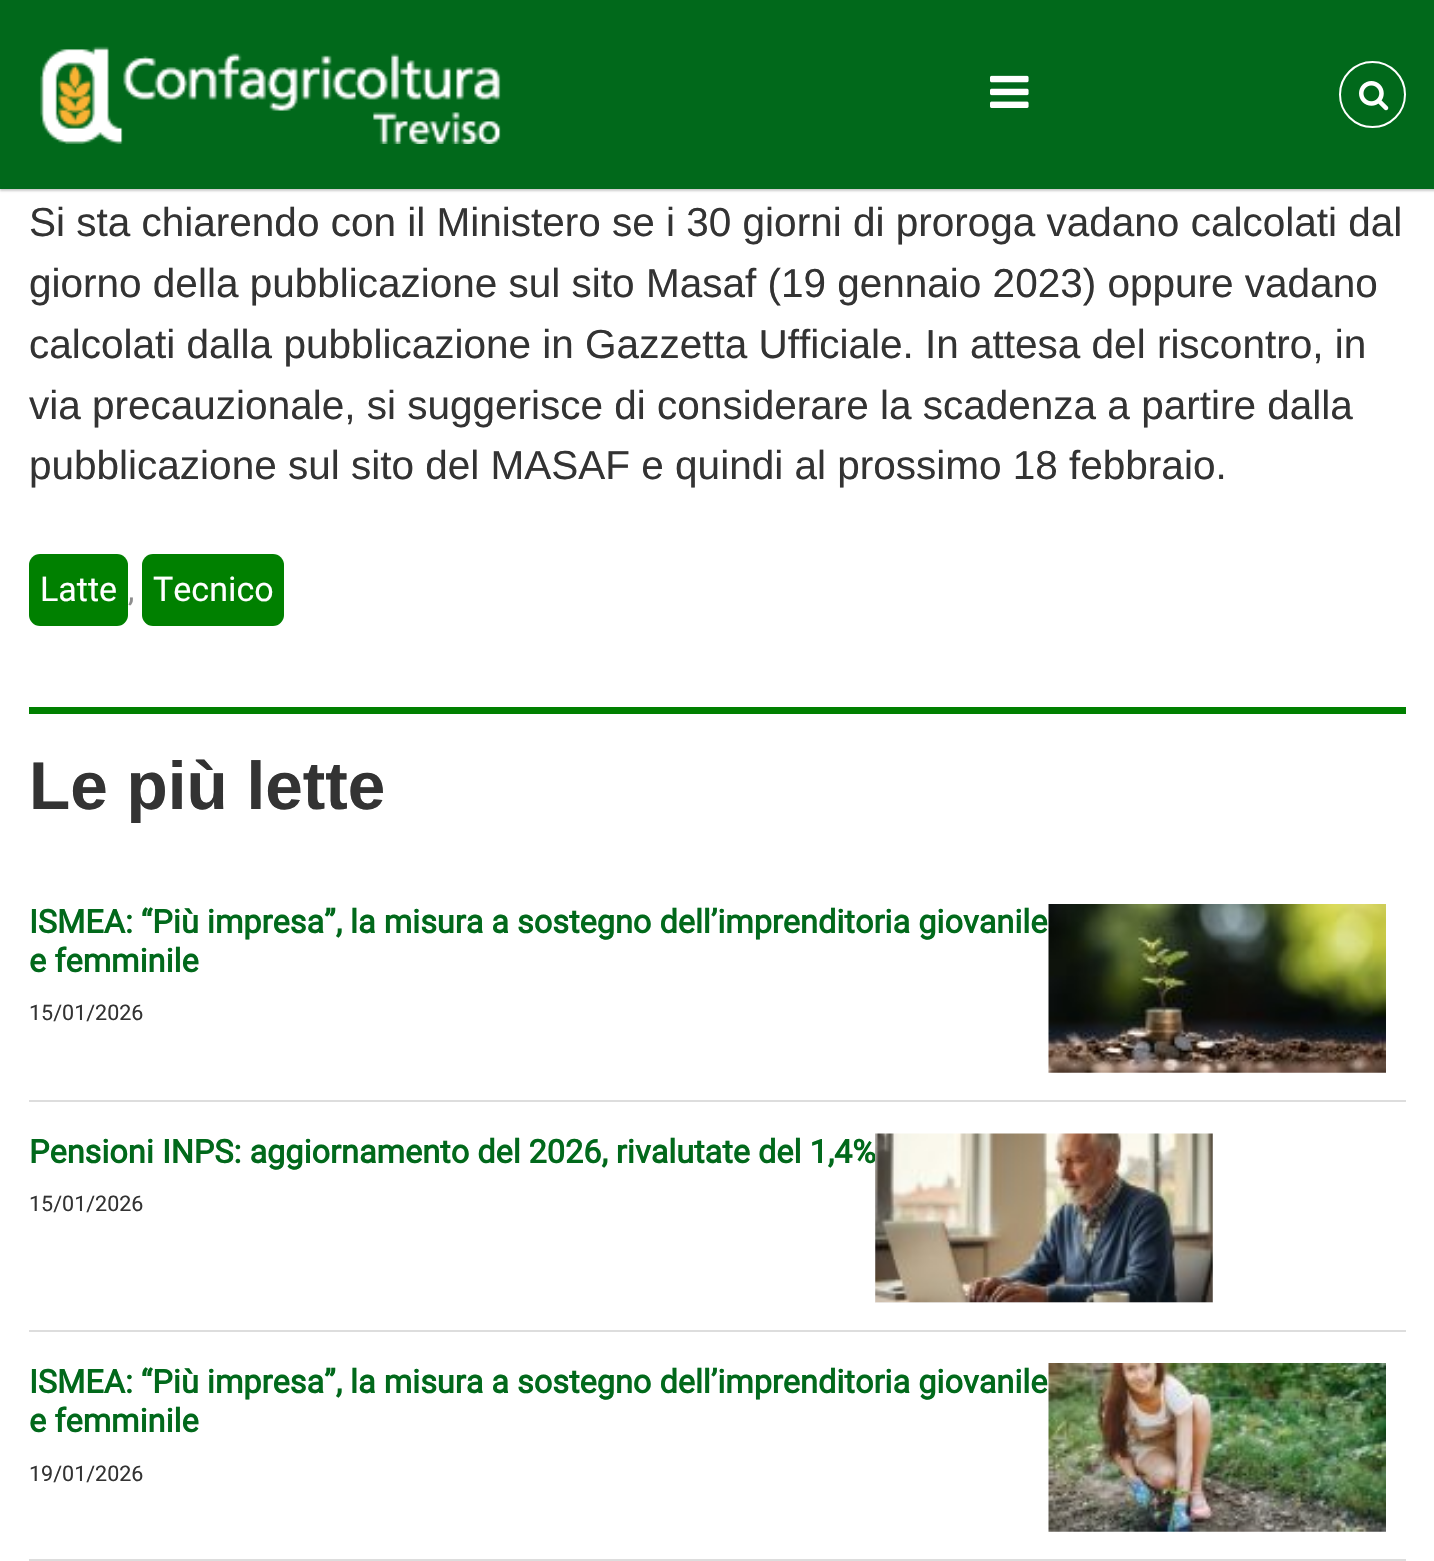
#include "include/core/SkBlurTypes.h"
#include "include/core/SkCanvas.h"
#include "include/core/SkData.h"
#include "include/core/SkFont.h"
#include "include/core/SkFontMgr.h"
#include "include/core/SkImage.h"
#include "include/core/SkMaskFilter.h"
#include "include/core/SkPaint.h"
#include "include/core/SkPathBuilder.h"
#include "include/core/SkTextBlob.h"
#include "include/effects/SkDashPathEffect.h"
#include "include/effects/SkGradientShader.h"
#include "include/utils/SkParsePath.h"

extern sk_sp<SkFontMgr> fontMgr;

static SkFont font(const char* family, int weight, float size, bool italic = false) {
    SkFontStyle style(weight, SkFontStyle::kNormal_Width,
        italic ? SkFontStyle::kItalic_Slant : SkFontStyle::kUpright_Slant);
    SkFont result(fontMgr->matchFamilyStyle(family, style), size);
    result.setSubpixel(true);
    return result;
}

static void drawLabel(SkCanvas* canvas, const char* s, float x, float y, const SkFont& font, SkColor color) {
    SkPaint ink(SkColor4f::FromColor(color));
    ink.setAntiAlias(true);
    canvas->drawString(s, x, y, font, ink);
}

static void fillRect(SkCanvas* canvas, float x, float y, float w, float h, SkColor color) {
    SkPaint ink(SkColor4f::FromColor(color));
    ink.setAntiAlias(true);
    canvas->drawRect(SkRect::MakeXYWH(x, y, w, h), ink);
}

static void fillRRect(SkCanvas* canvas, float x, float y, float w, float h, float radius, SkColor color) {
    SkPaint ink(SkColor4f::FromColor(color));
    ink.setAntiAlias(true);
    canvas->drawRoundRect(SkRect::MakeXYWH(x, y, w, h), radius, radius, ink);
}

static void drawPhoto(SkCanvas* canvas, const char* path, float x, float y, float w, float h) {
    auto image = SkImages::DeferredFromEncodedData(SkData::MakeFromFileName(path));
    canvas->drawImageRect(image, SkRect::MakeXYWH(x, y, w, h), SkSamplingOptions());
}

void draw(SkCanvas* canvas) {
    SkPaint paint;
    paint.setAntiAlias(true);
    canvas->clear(0xFFFFFFFF);
    paint.setColor(0x33000000);
    paint.setMaskFilter(SkMaskFilter::MakeBlur(kNormal_SkBlurStyle, 1));
    canvas->drawRect(SkRect::MakeXYWH(0, 2, 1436, 189), paint);
    paint.setMaskFilter(nullptr);
    fillRect(canvas, 0, 0, 1434, 189, 0xFF01691B);
    drawPhoto(canvas, "assets/img1.png", 40, 46, 461, 98);
    drawPhoto(canvas, "assets/img2.png", 990, 75, 39, 33);
    paint.setStroke(true);
    paint.setStrokeWidth(2);
    paint.setColor(0xFFFFFFFF);
    canvas->drawCircle(1372.5f, 94.5f, 32.5f, paint);
    drawPhoto(canvas, "assets/img3.png", 1359, 81, 30, 30);
    SkFont font1 = font("Liberation Sans", 400, 40.5f);
    drawLabel(canvas, "Si sta chiarendo con il Ministero se i 30 giorni di proroga vadano calcolati dal", 29, 236, font1, 0xFF333333);
    drawLabel(canvas, "giorno della pubblicazione sul sito Masaf (19 gennaio 2023) oppure vadano", 29, 297, font1, 0xFF333333);
    drawLabel(canvas, "calcolati dalla pubblicazione in Gazzetta Ufficiale. In attesa del riscontro, in", 29, 358, font1, 0xFF333333);
    drawLabel(canvas, "via precauzionale, si suggerisce di considerare la scadenza a partire dalla", 29, 419, font1, 0xFF333333);
    drawLabel(canvas, "pubblicazione sul sito del MASAF e quindi al prossimo 18 febbraio.", 29, 479, font1, 0xFF333333);
    fillRRect(canvas, 29, 554, 99, 72, 11, 0xFF008000);
    SkFont font2 = font("Heebo", 400, 34);
    drawLabel(canvas, "Latte", 40, 601, font2, 0xFFFFFFFF);
    SkFont font3 = font("Heebo", 400, 32);
    drawLabel(canvas, ",", 128, 601, font3, 0xFF8E8E8E);
    fillRRect(canvas, 142, 554, 142, 72, 11, 0xFF008000);
    drawLabel(canvas, "Tecnico", 153, 601, font2, 0xFFFFFFFF);
    fillRect(canvas, 29, 707, 1377, 7, 0xFF008000);
    SkFont font4 = font("Liberation Sans", 700, 67.5f);
    drawLabel(canvas, "Le più lette", 29, 809, font4, 0xFF333333);
    fillRect(canvas, 29, 1100, 1377, 2, 0xFFDDDDDD);
    SkFont font5 = font("Heebo", 700, 32.4f);
    drawLabel(canvas, "ISMEA: “Più impresa”, la misura a sostegno dell’imprenditoria giovanile", 29, 933, font5, 0xFF01691B);
    drawLabel(canvas, "e femminile", 29, 972, font5, 0xFF01691B);
    SkFont font6 = font("Heebo", 400, 21.5f);
    drawLabel(canvas, "15/01/2026", 29, 1020, font6, 0xFF333333);
    drawPhoto(canvas, "assets/img4.png", 1048, 904, 338, 169);
    fillRect(canvas, 29, 1330, 1377, 2, 0xFFDDDDDD);
    drawLabel(canvas, "Pensioni INPS: aggiornamento del 2026, rivalutate del 1,4%", 29, 1163, font5, 0xFF01691B);
    drawLabel(canvas, "15/01/2026", 29, 1211, font6, 0xFF333333);
    fillRect(canvas, 875, 1134, 338, 169, 0xFFF0F0F0);
    drawPhoto(canvas, "assets/img5.png", 875, 1133, 338, 170);
    fillRect(canvas, 29, 1559, 1377, 2, 0xFFDDDDDD);
    drawLabel(canvas, "ISMEA: “Più impresa”, la misura a sostegno dell’imprenditoria giovanile", 29, 1393, font5, 0xFF01691B);
    drawLabel(canvas, "e femminile", 29, 1432, font5, 0xFF01691B);
    drawLabel(canvas, "19/01/2026", 29, 1481, font6, 0xFF333333);
    drawPhoto(canvas, "assets/img6.png", 1048, 1363, 338, 169);
}
